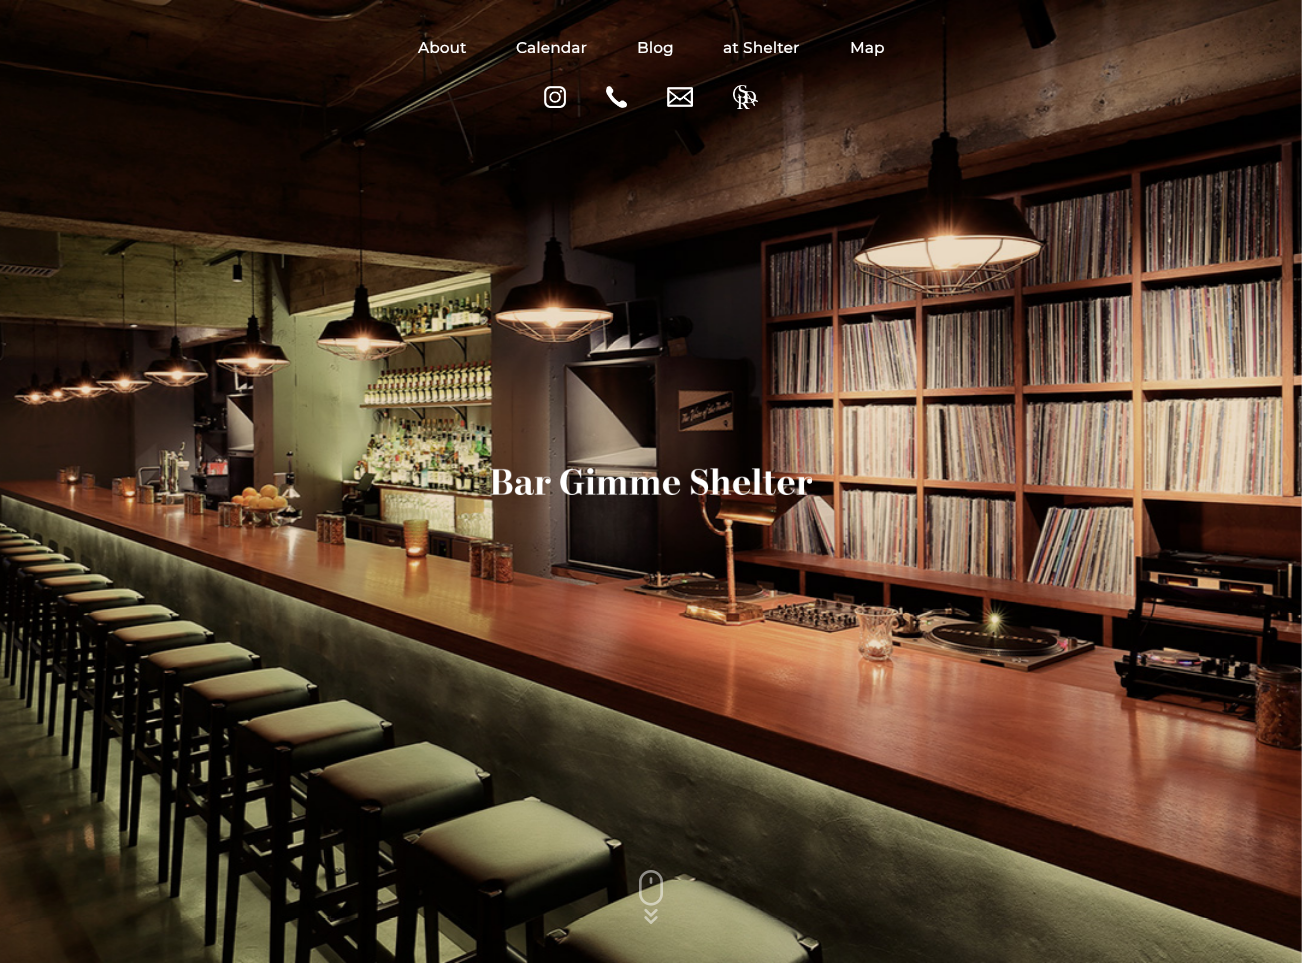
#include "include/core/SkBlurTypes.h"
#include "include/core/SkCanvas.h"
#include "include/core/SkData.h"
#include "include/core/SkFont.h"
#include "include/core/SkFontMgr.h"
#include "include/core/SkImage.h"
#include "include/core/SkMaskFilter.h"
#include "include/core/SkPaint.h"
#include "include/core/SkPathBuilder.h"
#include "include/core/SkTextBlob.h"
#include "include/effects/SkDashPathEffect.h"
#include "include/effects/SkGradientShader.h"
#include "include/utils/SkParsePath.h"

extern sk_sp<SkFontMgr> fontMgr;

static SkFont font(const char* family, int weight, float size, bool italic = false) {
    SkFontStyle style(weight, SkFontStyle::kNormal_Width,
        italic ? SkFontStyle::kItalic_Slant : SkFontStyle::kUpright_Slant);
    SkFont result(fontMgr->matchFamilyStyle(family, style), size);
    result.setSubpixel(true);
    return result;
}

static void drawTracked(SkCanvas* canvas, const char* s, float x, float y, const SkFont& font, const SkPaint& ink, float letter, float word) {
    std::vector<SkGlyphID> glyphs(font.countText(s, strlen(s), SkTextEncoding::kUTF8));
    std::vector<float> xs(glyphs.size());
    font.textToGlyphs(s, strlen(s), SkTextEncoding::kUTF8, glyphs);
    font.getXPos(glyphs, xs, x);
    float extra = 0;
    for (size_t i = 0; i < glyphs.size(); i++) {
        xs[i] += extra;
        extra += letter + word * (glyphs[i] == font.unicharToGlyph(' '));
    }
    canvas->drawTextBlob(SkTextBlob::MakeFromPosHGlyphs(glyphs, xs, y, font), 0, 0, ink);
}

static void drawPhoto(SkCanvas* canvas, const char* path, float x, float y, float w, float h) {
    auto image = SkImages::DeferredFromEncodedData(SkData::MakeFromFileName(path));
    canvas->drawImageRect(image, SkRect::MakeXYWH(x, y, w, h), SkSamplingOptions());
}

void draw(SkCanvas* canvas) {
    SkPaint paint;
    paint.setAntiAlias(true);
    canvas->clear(0xFFFFFFFF);
    drawPhoto(canvas, "assets/img1.png", 0, 0, 1302, 963);
    drawPhoto(canvas, "assets/img2.png", 639, 870, 24, 54);
    drawPhoto(canvas, "assets/img3.png", 490, 468, 322, 27);
    SkFont font1 = font("Montserrat", 700, 15);
    paint.setColor(0xFFFFFFFF);
    drawTracked(canvas, "About", 418, 53, font1, paint, 0.4f, 0);
    drawTracked(canvas, "Calendar", 516, 53, font1, paint, 0.4f, 0);
    drawTracked(canvas, "Blog", 637, 53, font1, paint, 0.4f, 0);
    drawTracked(canvas, "at Shelter", 723, 53, font1, paint, 0.4f, 0);
    drawTracked(canvas, "Map", 850, 53, font1, paint, 0.4f, 0);
    drawPhoto(canvas, "assets/img4.png", 544, 86, 22, 22);
    drawPhoto(canvas, "assets/img5.png", 606, 86, 21, 22);
    drawPhoto(canvas, "assets/img6.png", 667, 87, 26, 20);
    drawPhoto(canvas, "assets/img7.png", 733, 85, 25, 24);
}
